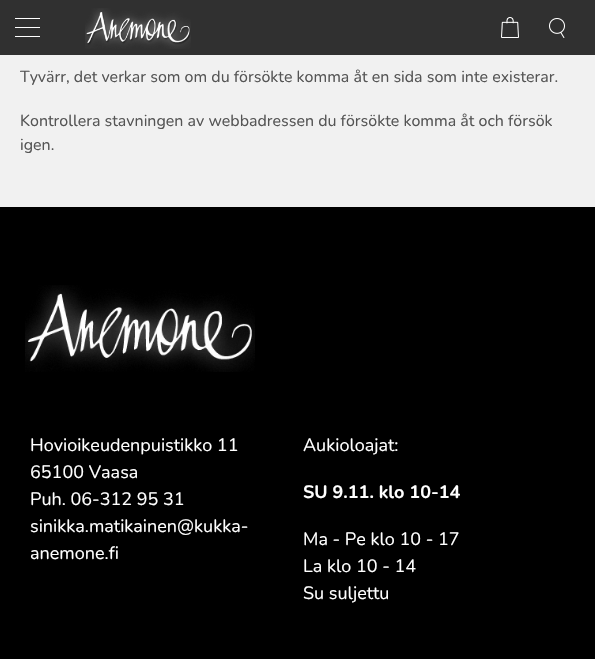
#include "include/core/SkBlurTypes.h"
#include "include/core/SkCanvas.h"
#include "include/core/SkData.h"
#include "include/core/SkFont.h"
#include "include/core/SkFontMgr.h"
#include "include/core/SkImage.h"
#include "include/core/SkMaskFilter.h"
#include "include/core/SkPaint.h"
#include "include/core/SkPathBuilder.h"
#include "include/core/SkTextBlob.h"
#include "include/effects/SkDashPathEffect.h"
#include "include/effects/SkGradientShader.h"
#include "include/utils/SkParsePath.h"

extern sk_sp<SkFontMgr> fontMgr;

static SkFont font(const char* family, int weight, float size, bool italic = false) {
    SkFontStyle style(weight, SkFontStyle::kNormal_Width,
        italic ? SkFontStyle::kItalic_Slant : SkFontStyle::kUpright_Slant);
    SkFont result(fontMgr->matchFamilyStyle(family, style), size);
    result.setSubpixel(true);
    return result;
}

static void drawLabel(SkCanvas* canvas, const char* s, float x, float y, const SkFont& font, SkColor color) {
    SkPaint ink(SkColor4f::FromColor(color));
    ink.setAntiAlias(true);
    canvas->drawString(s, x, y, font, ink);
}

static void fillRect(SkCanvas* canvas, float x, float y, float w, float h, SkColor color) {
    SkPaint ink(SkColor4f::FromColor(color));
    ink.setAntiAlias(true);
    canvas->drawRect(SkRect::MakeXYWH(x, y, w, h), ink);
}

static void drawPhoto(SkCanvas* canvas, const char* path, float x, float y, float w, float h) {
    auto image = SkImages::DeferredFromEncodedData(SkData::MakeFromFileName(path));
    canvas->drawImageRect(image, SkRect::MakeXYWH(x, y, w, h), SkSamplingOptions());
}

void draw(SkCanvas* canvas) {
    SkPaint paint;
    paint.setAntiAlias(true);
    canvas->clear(0xFFF1F1F1);
    fillRect(canvas, 0, 0, 595, 55, 0xFF303030);
    drawPhoto(canvas, "assets/img1.png", 85, 8, 106, 41);
    drawPhoto(canvas, "assets/img2.png", 15, 18, 25, 19);
    drawPhoto(canvas, "assets/img3.png", 501, 17, 18, 21);
    drawPhoto(canvas, "assets/img4.png", 549, 18, 16, 20);
    SkFont font1 = font("Nunito", 400, 16);
    drawLabel(canvas, "Tyvärr, det verkar som om du försökte komma åt en sida som inte existerar.", 20, 82, font1, 0xFF555555);
    drawLabel(canvas, "Kontrollera stavningen av webbadressen du försökte komma åt och försök", 20, 126, font1, 0xFF555555);
    drawLabel(canvas, "igen.", 20, 150, font1, 0xFF555555);
    fillRect(canvas, 0, 207, 595, 452, 0xFF000000);
    drawPhoto(canvas, "assets/img5.png", 25, 285, 230, 87);
    SkFont font2 = font("Nunito", 400, 18);
    drawLabel(canvas, "Hovioikeudenpuistikko 11", 30, 451, font2, 0xFFFFFFFF);
    drawLabel(canvas, "65100 Vaasa", 30, 478, font2, 0xFFFFFFFF);
    drawLabel(canvas, "Puh. 06-312 95 31", 30, 505, font2, 0xFFFFFFFF);
    drawLabel(canvas, "sinikka.matikainen@kukka-", 30, 532, font2, 0xFFFFFFFF);
    drawLabel(canvas, "anemone.fi", 30, 559, font2, 0xFFFFFFFF);
    drawLabel(canvas, "Aukioloajat:", 303, 451, font2, 0xFFFFFFFF);
    SkFont font3 = font("Nunito", 700, 18);
    drawLabel(canvas, "SU 9.11. klo 10-14", 303, 498, font3, 0xFFFFFFFF);
    drawLabel(canvas, "Ma - Pe klo 10 - 17", 303, 545, font2, 0xFFFFFFFF);
    drawLabel(canvas, "La klo 10 - 14", 303, 572, font2, 0xFFFFFFFF);
    drawLabel(canvas, "Su suljettu", 303, 599, font2, 0xFFFFFFFF);
}
